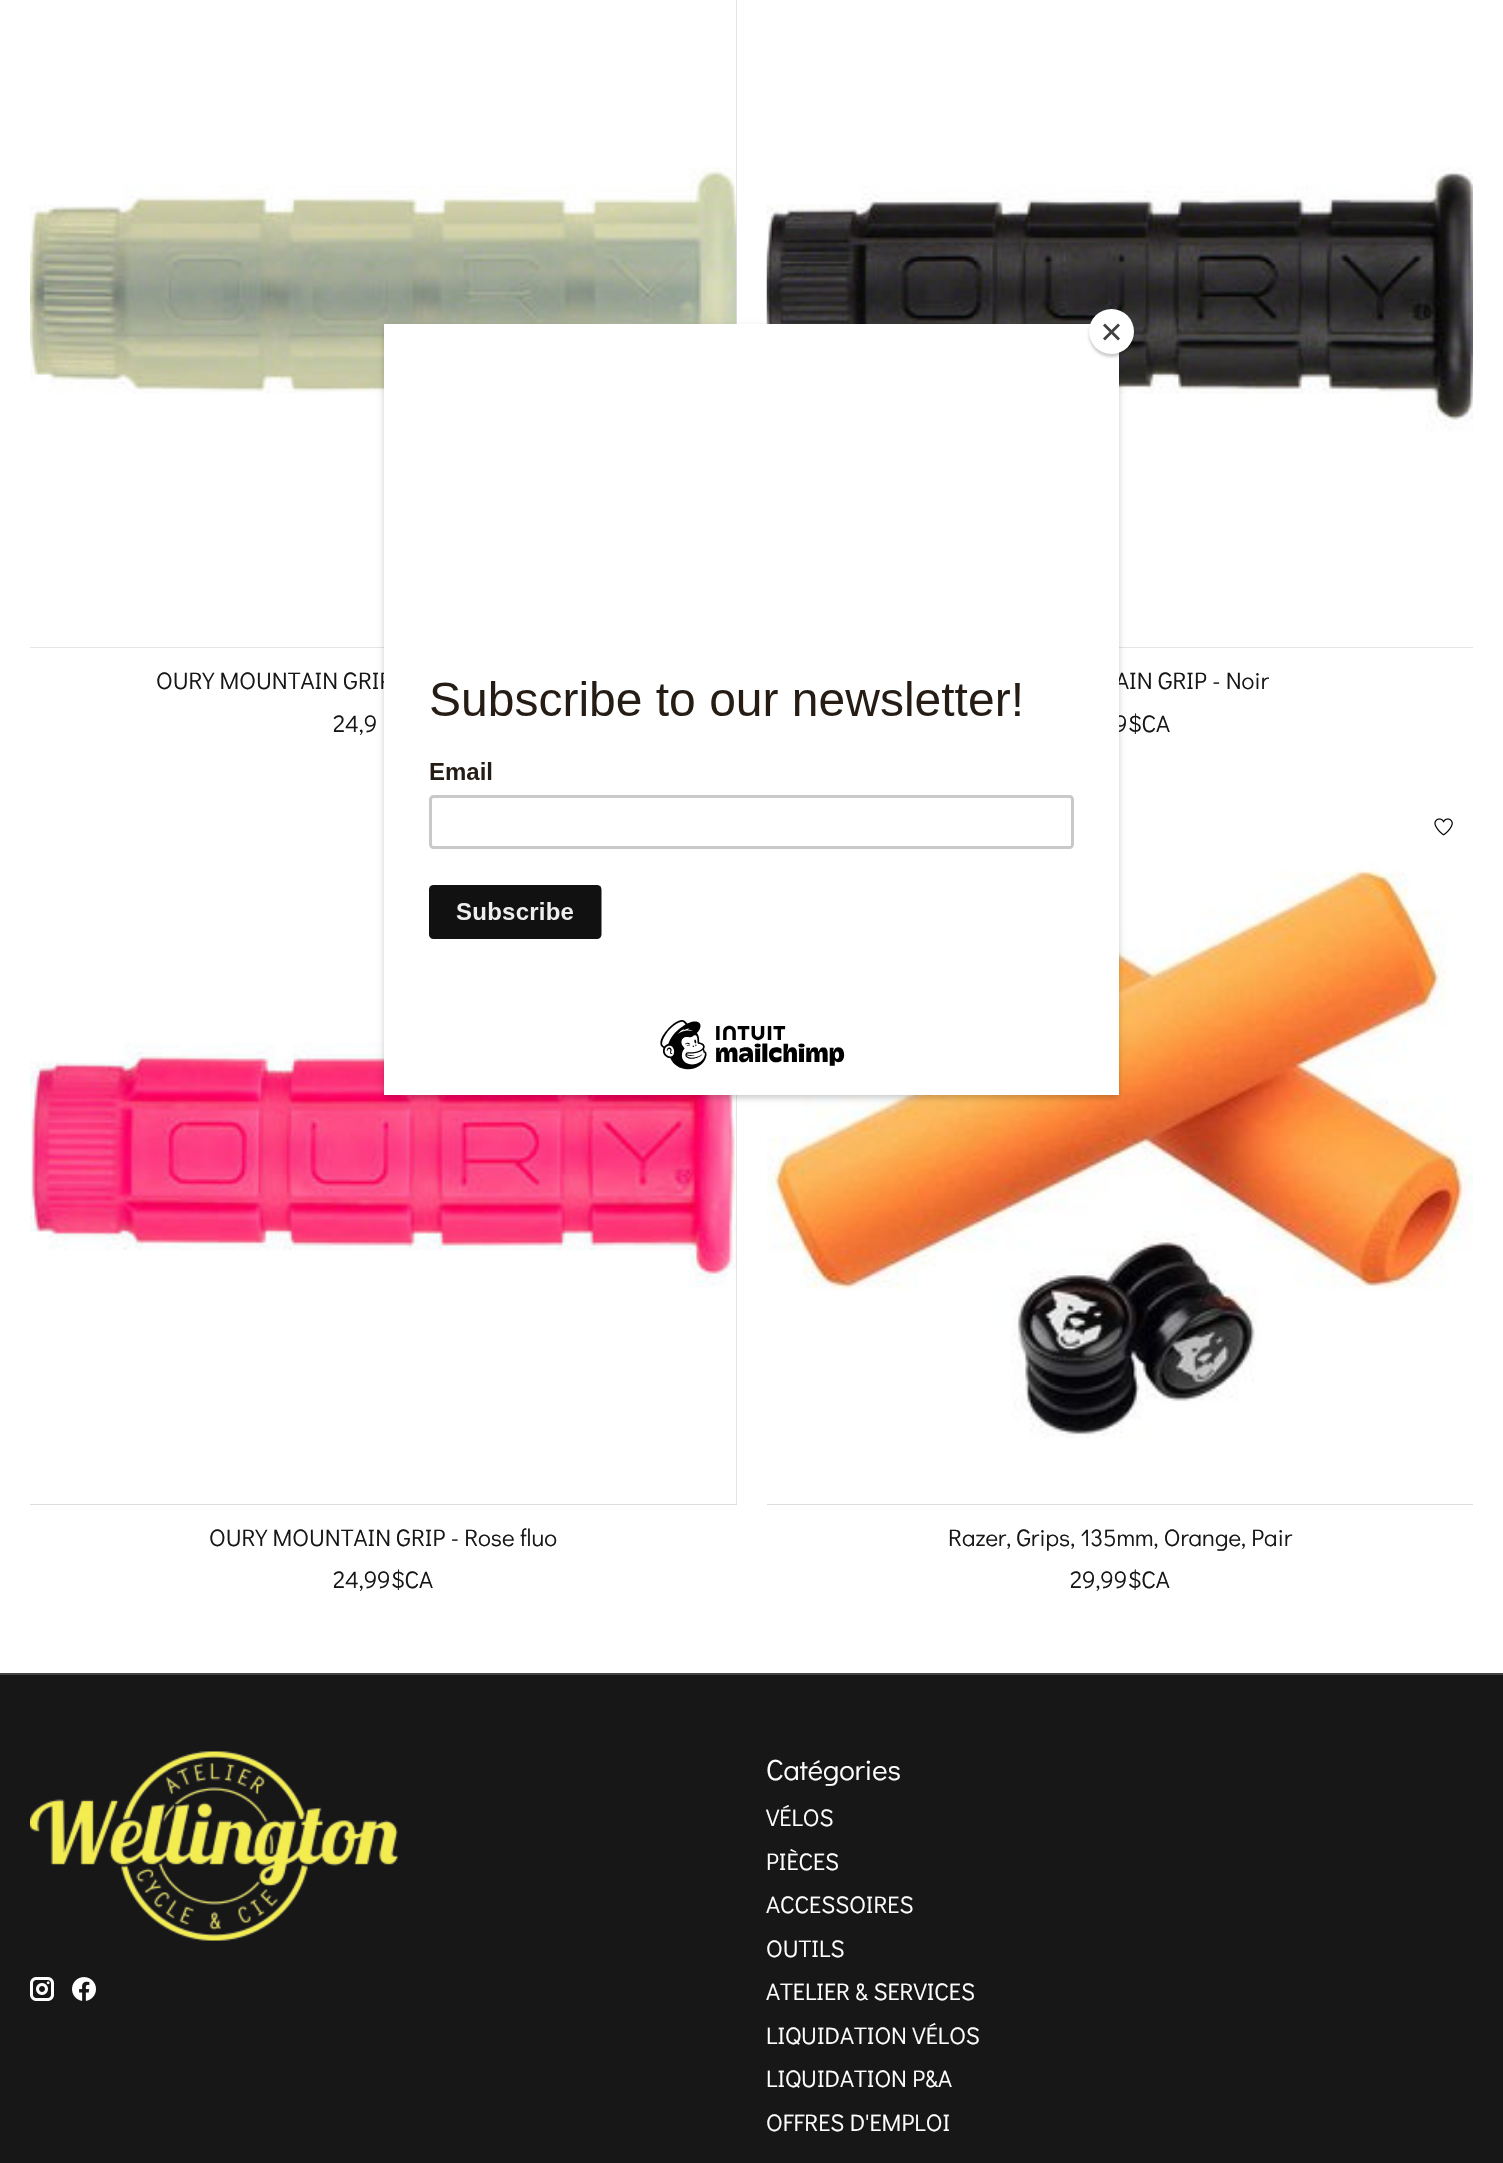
#include "include/core/SkBlurTypes.h"
#include "include/core/SkCanvas.h"
#include "include/core/SkData.h"
#include "include/core/SkFont.h"
#include "include/core/SkFontMgr.h"
#include "include/core/SkImage.h"
#include "include/core/SkMaskFilter.h"
#include "include/core/SkPaint.h"
#include "include/core/SkPathBuilder.h"
#include "include/core/SkTextBlob.h"
#include "include/effects/SkDashPathEffect.h"
#include "include/effects/SkGradientShader.h"
#include "include/utils/SkParsePath.h"

extern sk_sp<SkFontMgr> fontMgr;

static SkFont font(const char* family, int weight, float size, bool italic = false) {
    SkFontStyle style(weight, SkFontStyle::kNormal_Width,
        italic ? SkFontStyle::kItalic_Slant : SkFontStyle::kUpright_Slant);
    SkFont result(fontMgr->matchFamilyStyle(family, style), size);
    result.setSubpixel(true);
    return result;
}

static void drawLabel(SkCanvas* canvas, const char* s, float x, float y, const SkFont& font, SkColor color) {
    SkPaint ink(SkColor4f::FromColor(color));
    ink.setAntiAlias(true);
    canvas->drawString(s, x, y, font, ink);
}

static void fillRect(SkCanvas* canvas, float x, float y, float w, float h, SkColor color) {
    SkPaint ink(SkColor4f::FromColor(color));
    ink.setAntiAlias(true);
    canvas->drawRect(SkRect::MakeXYWH(x, y, w, h), ink);
}

static void drawPhoto(SkCanvas* canvas, const char* path, float x, float y, float w, float h) {
    auto image = SkImages::DeferredFromEncodedData(SkData::MakeFromFileName(path));
    canvas->drawImageRect(image, SkRect::MakeXYWH(x, y, w, h), SkSamplingOptions());
}

static SkPath parsePath(const char* data, bool evenOdd = false) {
    SkPath result = *SkParsePath::FromSVGString(data);
    if (evenOdd) result.setFillType(SkPathFillType::kEvenOdd);
    return result;
}

void draw(SkCanvas* canvas) {
    SkPaint paint;
    paint.setAntiAlias(true);
    canvas->clear(0xFFFFFFFF);
    fillRect(canvas, 30, 0, 707, 648, 0xFFDDDDDD);
    drawPhoto(canvas, "assets/img2.png", 30, 0, 707, 648);
    fillRect(canvas, 1119, 647, 354, 1, 0xFFDDDDDD);
    drawPhoto(canvas, "assets/img3.png", 766, 0, 707, 648);
    fillRect(canvas, 30, 1095, 707, 410, 0xFFDDDDDD);
    drawPhoto(canvas, "assets/img4.png", 30, 798, 707, 706);
    drawPhoto(canvas, "assets/img5.png", 767, 798, 706, 706);
    paint.setColor(0x33000000);
    paint.setMaskFilter(SkMaskFilter::MakeBlur(kNormal_SkBlurStyle, 3));
    canvas->drawRect(SkRect::MakeXYWH(384, 327, 735, 771), paint);
    paint.setMaskFilter(nullptr);
    SkFont font1 = font("Didact Gothic", 400, 24);
    drawLabel(canvas, "OURY MOUNTAIN GRIP", 156, 689, font1, 0xFF181618);
    drawLabel(canvas, "AIN GRIP - Noir", 1115, 689, font1, 0xFF181618);
    drawLabel(canvas, "9$CA", 1114, 732, font1, 0xFF181618);
    drawPhoto(canvas, "assets/img1.png", 384, 324, 735, 771);
    paint.setMaskFilter(SkMaskFilter::MakeBlur(kNormal_SkBlurStyle, 1.5f));
    canvas->drawRoundRect(SkRect::MakeXYWH(1089, 312, 45, 45), 22.5f, 22.5f, paint);
    paint.setMaskFilter(nullptr);
    paint.setColor(0xFFFFFFFF);
    canvas->drawCircle(1111.5f, 331.5f, 22.5f, paint);
    paint.setColor(0xFF414141);
    canvas->drawPath(parsePath("M1118 323.5L1120 325.5L1105 340.5L1103 338.5Z"), paint);
    canvas->drawPath(parsePath("M1103 325.5L1105 323.5L1120 338.5L1118 340.5Z"), paint);
    drawLabel(canvas, "24,9", 333, 732, font1, 0xFF181618);
    drawLabel(canvas, "OURY MOUNTAIN GRIP - Rose fluo", 209, 1546, font1, 0xFF181618);
    drawLabel(canvas, "24,99$CA", 333, 1588, font1, 0xFF181618);
    fillRect(canvas, 767, 1504, 706, 1, 0xFFDDDDDD);
    drawPhoto(canvas, "assets/img6.png", 1434, 818, 19, 18);
    drawLabel(canvas, "Razer, Grips, 135mm, Orange, Pair", 948, 1546, font1, 0xFF181618);
    drawLabel(canvas, "29,99$CA", 1070, 1588, font1, 0xFF181618);
    fillRect(canvas, 0, 1675, 1503, 488, 0xFF181718);
    fillRect(canvas, 0, 1673, 1503, 2, 0xFF464546);
    drawPhoto(canvas, "assets/img7.png", 30, 1751, 368, 190);
    drawPhoto(canvas, "assets/img8.png", 30, 1977, 24, 24);
    drawPhoto(canvas, "assets/img9.png", 72, 1977, 24, 24);
    SkFont font2 = font("Didact Gothic", 400, 29);
    drawLabel(canvas, "Catégories", 766, 1780, font2, 0xFFFFFFFF);
    drawLabel(canvas, "VÉLOS", 766, 1826, font1, 0xFFFFFFFF);
    drawLabel(canvas, "PIÈCES", 766, 1870, font1, 0xFFFFFFFF);
    drawLabel(canvas, "ACCESSOIRES", 766, 1913, font1, 0xFFFFFFFF);
    drawLabel(canvas, "OUTILS", 766, 1957, font1, 0xFFFFFFFF);
    drawLabel(canvas, "ATELIER & SERVICES", 766, 2000, font1, 0xFFFFFFFF);
    drawLabel(canvas, "LIQUIDATION VÉLOS", 766, 2044, font1, 0xFFFFFFFF);
    drawLabel(canvas, "LIQUIDATION P&A", 766, 2087, font1, 0xFFFFFFFF);
    drawLabel(canvas, "OFFRES D'EMPLOI", 766, 2131, font1, 0xFFFFFFFF);
}
